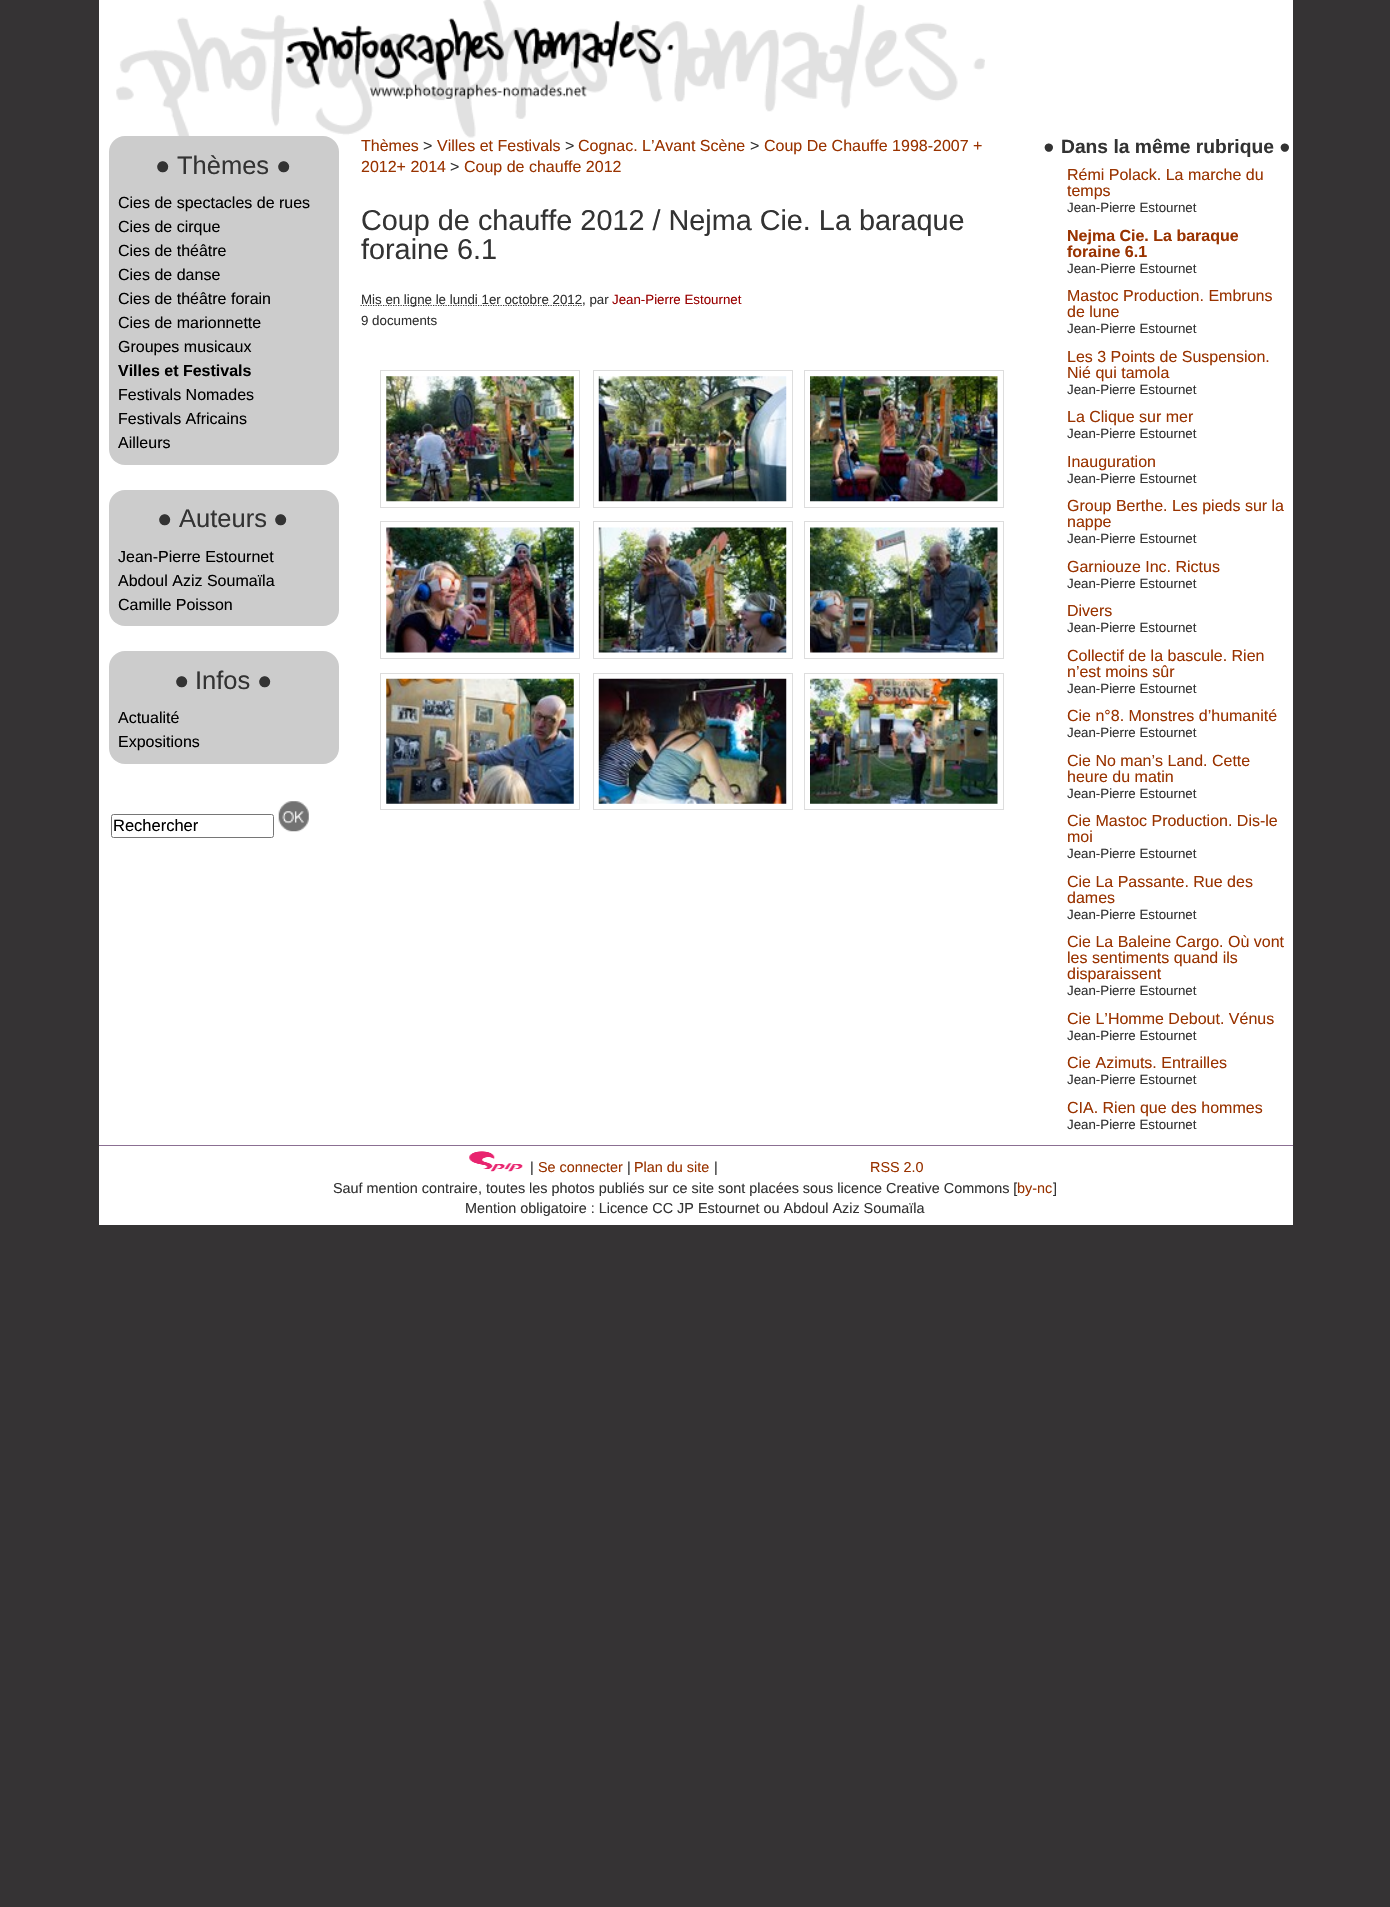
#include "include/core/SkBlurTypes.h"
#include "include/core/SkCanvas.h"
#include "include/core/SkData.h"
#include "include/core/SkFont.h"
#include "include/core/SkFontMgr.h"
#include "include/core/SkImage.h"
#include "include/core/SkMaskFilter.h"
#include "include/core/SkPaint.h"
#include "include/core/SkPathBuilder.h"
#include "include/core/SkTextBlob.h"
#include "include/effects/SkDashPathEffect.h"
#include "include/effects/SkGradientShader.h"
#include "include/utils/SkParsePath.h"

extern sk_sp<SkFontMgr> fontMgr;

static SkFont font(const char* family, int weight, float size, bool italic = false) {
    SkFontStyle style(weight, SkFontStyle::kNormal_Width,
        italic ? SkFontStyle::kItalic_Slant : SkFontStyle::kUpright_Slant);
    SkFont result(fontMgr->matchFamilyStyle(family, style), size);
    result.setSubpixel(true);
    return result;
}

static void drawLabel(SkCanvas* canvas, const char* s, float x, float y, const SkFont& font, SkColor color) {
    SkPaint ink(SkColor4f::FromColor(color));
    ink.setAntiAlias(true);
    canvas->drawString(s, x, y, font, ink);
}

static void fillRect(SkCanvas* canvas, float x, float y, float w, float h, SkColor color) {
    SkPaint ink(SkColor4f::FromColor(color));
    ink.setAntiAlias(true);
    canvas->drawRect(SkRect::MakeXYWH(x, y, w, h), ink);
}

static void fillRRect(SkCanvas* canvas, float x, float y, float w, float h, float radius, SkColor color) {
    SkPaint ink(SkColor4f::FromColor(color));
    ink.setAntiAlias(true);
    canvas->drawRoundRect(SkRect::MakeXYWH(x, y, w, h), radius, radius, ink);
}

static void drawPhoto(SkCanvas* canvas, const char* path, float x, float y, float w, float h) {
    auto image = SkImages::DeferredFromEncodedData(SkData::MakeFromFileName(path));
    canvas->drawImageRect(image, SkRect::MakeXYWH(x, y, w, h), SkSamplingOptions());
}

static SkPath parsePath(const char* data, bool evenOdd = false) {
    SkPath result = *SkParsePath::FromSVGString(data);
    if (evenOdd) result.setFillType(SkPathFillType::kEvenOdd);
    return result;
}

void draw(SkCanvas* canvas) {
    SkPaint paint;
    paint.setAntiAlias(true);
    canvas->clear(0xFF353334);
    fillRect(canvas, 99, 0, 1194, 1225, 0xFFFFFFFF);
    drawPhoto(canvas, "assets/img1.png", 116, 0, 869, 138);
    drawPhoto(canvas, "assets/img2.png", 286, 18, 388, 81);
    fillRRect(canvas, 109, 136, 230, 329, 16, 0xFFCCCCCC);
    SkFont font1 = font("Liberation Sans", 400, 25.5f);
    drawLabel(canvas, "●", 155, 174, font1, 0xFF333333);
    drawLabel(canvas, "Thèmes", 177, 174, font1, 0xFF333333);
    drawLabel(canvas, "●", 276, 174, font1, 0xFF333333);
    SkFont font2 = font("Liberation Sans", 400, 16);
    drawLabel(canvas, "Cies de spectacles de rues", 118, 208, font2, 0xFF000000);
    drawLabel(canvas, "Cies de cirque", 118, 232, font2, 0xFF000000);
    drawLabel(canvas, "Cies de théâtre", 118, 256, font2, 0xFF000000);
    drawLabel(canvas, "Cies de danse", 118, 280, font2, 0xFF000000);
    drawLabel(canvas, "Cies de théâtre forain", 118, 304, font2, 0xFF000000);
    drawLabel(canvas, "Cies de marionnette", 118, 328, font2, 0xFF000000);
    drawLabel(canvas, "Groupes musicaux", 118, 352, font2, 0xFF000000);
    SkFont font3 = font("Liberation Sans", 700, 16);
    drawLabel(canvas, "Villes et Festivals", 118, 376, font3, 0xFF000000);
    drawLabel(canvas, "Festivals Nomades", 118, 400, font2, 0xFF000000);
    drawLabel(canvas, "Festivals Africains", 118, 424, font2, 0xFF000000);
    drawLabel(canvas, "Ailleurs", 118, 448, font2, 0xFF000000);
    fillRRect(canvas, 109, 490, 230, 136, 16, 0xFFCCCCCC);
    drawLabel(canvas, "●", 157, 527, font1, 0xFF333333);
    drawLabel(canvas, "Auteurs", 179, 527, font1, 0xFF333333);
    drawLabel(canvas, "●", 273, 527, font1, 0xFF333333);
    drawLabel(canvas, "Jean-Pierre Estournet", 118, 562, font2, 0xFF000000);
    drawLabel(canvas, "Abdoul Aziz Soumaïla", 118, 586, font2, 0xFF000000);
    drawLabel(canvas, "Camille Poisson", 118, 610, font2, 0xFF000000);
    fillRRect(canvas, 109, 651, 230, 113, 16, 0xFFCCCCCC);
    drawLabel(canvas, "●", 174, 689, font1, 0xFF333333);
    drawLabel(canvas, "Infos", 195, 689, font1, 0xFF333333);
    drawLabel(canvas, "●", 257, 689, font1, 0xFF333333);
    drawLabel(canvas, "Actualité", 118, 723, font2, 0xFF000000);
    drawLabel(canvas, "Expositions", 118, 747, font2, 0xFF000000);
    paint.setStroke(true);
    paint.setStrokeWidth(1);
    paint.setColor(0xFF767676);
    canvas->drawRoundRect(SkRect::MakeXYWH(111.5f, 814.5f, 162, 23), 2, 2, paint);
    SkFont font4 = font("Liberation Sans", 400, 16.5f);
    drawLabel(canvas, "Rechercher", 113, 831, font4, 0xFF000000);
    drawPhoto(canvas, "assets/img3.png", 278, 801, 31, 31);
    drawLabel(canvas, "Thèmes", 361, 151, font2, 0xFF993300);
    drawLabel(canvas, ">", 423, 151, font2, 0xFF333333);
    drawLabel(canvas, "Villes et Festivals", 437, 151, font2, 0xFF993300);
    drawLabel(canvas, ">", 565, 151, font2, 0xFF333333);
    drawLabel(canvas, "Cognac. L’Avant Scène", 578, 151, font2, 0xFF993300);
    drawLabel(canvas, ">", 750, 151, font2, 0xFF333333);
    drawLabel(canvas, "Coup De Chauffe 1998-2007 +", 764, 151, font2, 0xFF993300);
    drawLabel(canvas, "2012+ 2014", 361, 172, font2, 0xFF993300);
    drawLabel(canvas, ">", 450, 172, font2, 0xFF333333);
    drawLabel(canvas, "Coup de chauffe 2012", 464, 172, font2, 0xFF993300);
    SkFont font5 = font("Liberation Sans", 400, 28.8f);
    drawLabel(canvas, "Coup de chauffe 2012 / Nejma Cie. La baraque", 361, 230, font5, 0xFF333333);
    drawLabel(canvas, "foraine 6.1", 361, 259, font5, 0xFF333333);
    paint.setStrokeWidth(1.2f);
    paint.setColor(0xFF333333);
    paint.setPathEffect(SkDashPathEffect::Make({{1.25f, 1.25f}}, 0));
    canvas->drawPath(parsePath("M360.5 305.5H582"), paint);
    paint.setPathEffect(nullptr);
    SkFont font6 = font("Liberation Sans", 400, 13.3f);
    drawLabel(canvas, "Mis en ligne le lundi 1er octobre 2012, par", 361, 304, font6, 0xFF333333);
    drawLabel(canvas, "Jean-Pierre Estournet", 612, 304, font6, 0xFF990000);
    drawLabel(canvas, "9 documents", 361, 325, font6, 0xFF333333);
    paint.setStrokeWidth(1);
    paint.setColor(0xFFDDDDDD);
    canvas->drawRect(SkRect::MakeXYWH(380.5f, 370.5f, 199, 137), paint);
    canvas->drawRect(SkRect::MakeXYWH(593.5f, 370.5f, 199, 137), paint);
    canvas->drawRect(SkRect::MakeXYWH(804.5f, 370.5f, 199, 137), paint);
    drawPhoto(canvas, "assets/img4.png", 386, 376, 188, 126);
    drawPhoto(canvas, "assets/img5.png", 598, 376, 189, 126);
    drawPhoto(canvas, "assets/img6.png", 810, 376, 188, 126);
    canvas->drawRect(SkRect::MakeXYWH(380.5f, 521.5f, 199, 137), paint);
    canvas->drawRect(SkRect::MakeXYWH(593.5f, 521.5f, 199, 137), paint);
    canvas->drawRect(SkRect::MakeXYWH(804.5f, 521.5f, 199, 137), paint);
    drawPhoto(canvas, "assets/img7.png", 386, 527, 188, 126);
    drawPhoto(canvas, "assets/img8.png", 598, 527, 189, 126);
    drawPhoto(canvas, "assets/img9.png", 810, 527, 188, 126);
    canvas->drawRect(SkRect::MakeXYWH(380.5f, 673.5f, 199, 136), paint);
    canvas->drawRect(SkRect::MakeXYWH(593.5f, 673.5f, 199, 136), paint);
    canvas->drawRect(SkRect::MakeXYWH(804.5f, 673.5f, 199, 136), paint);
    drawPhoto(canvas, "assets/img10.png", 386, 678, 188, 126);
    drawPhoto(canvas, "assets/img11.png", 598, 678, 189, 126);
    drawPhoto(canvas, "assets/img12.png", 810, 678, 188, 126);
    SkFont font7 = font("Liberation Sans", 700, 19.25f);
    drawLabel(canvas, "●", 1043, 153, font7, 0xFF333333);
    drawLabel(canvas, "Dans la même rubrique", 1061, 153, font7, 0xFF333333);
    drawLabel(canvas, "●", 1279, 153, font7, 0xFF333333);
    drawLabel(canvas, "Rémi Polack. La marche du", 1067, 180, font2, 0xFF993300);
    drawLabel(canvas, "temps", 1067, 196, font2, 0xFF993300);
    drawLabel(canvas, "Jean-Pierre Estournet", 1067, 212, font6, 0xFF333333);
    drawLabel(canvas, "Nejma Cie. La baraque", 1067, 241, font3, 0xFF993300);
    drawLabel(canvas, "foraine 6.1", 1067, 257, font3, 0xFF993300);
    drawLabel(canvas, "Jean-Pierre Estournet", 1067, 273, font6, 0xFF333333);
    drawLabel(canvas, "Mastoc Production. Embruns", 1067, 301, font2, 0xFF993300);
    drawLabel(canvas, "de lune", 1067, 317, font2, 0xFF993300);
    drawLabel(canvas, "Jean-Pierre Estournet", 1067, 333, font6, 0xFF333333);
    drawLabel(canvas, "Les 3 Points de Suspension.", 1067, 362, font2, 0xFF993300);
    drawLabel(canvas, "Nié qui tamola", 1067, 378, font2, 0xFF993300);
    drawLabel(canvas, "Jean-Pierre Estournet", 1067, 394, font6, 0xFF333333);
    drawLabel(canvas, "La Clique sur mer", 1067, 422, font2, 0xFF993300);
    drawLabel(canvas, "Jean-Pierre Estournet", 1067, 438, font6, 0xFF333333);
    drawLabel(canvas, "Inauguration", 1067, 467, font2, 0xFF993300);
    drawLabel(canvas, "Jean-Pierre Estournet", 1067, 483, font6, 0xFF333333);
    drawLabel(canvas, "Group Berthe. Les pieds sur la", 1067, 511, font2, 0xFF993300);
    drawLabel(canvas, "nappe", 1067, 527, font2, 0xFF993300);
    drawLabel(canvas, "Jean-Pierre Estournet", 1067, 543, font6, 0xFF333333);
    drawLabel(canvas, "Garniouze Inc. Rictus", 1067, 572, font2, 0xFF993300);
    drawLabel(canvas, "Jean-Pierre Estournet", 1067, 588, font6, 0xFF333333);
    drawLabel(canvas, "Divers", 1067, 616, font2, 0xFF993300);
    drawLabel(canvas, "Jean-Pierre Estournet", 1067, 632, font6, 0xFF333333);
    drawLabel(canvas, "Collectif de la bascule. Rien", 1067, 661, font2, 0xFF993300);
    drawLabel(canvas, "n’est moins sûr", 1067, 677, font2, 0xFF993300);
    drawLabel(canvas, "Jean-Pierre Estournet", 1067, 693, font6, 0xFF333333);
    drawLabel(canvas, "Cie n°8. Monstres d’humanité", 1067, 721, font2, 0xFF993300);
    drawLabel(canvas, "Jean-Pierre Estournet", 1067, 737, font6, 0xFF333333);
    drawLabel(canvas, "Cie No man’s Land. Cette", 1067, 766, font2, 0xFF993300);
    drawLabel(canvas, "heure du matin", 1067, 782, font2, 0xFF993300);
    drawLabel(canvas, "Jean-Pierre Estournet", 1067, 798, font6, 0xFF333333);
    drawLabel(canvas, "Cie Mastoc Production. Dis-le", 1067, 826, font2, 0xFF993300);
    drawLabel(canvas, "moi", 1067, 842, font2, 0xFF993300);
    drawLabel(canvas, "Jean-Pierre Estournet", 1067, 858, font6, 0xFF333333);
    drawLabel(canvas, "Cie La Passante. Rue des", 1067, 887, font2, 0xFF993300);
    drawLabel(canvas, "dames", 1067, 903, font2, 0xFF993300);
    drawLabel(canvas, "Jean-Pierre Estournet", 1067, 919, font6, 0xFF333333);
    drawLabel(canvas, "Cie La Baleine Cargo. Où vont", 1067, 947, font2, 0xFF993300);
    drawLabel(canvas, "les sentiments quand ils", 1067, 963, font2, 0xFF993300);
    drawLabel(canvas, "disparaissent", 1067, 979, font2, 0xFF993300);
    drawLabel(canvas, "Jean-Pierre Estournet", 1067, 995, font6, 0xFF333333);
    drawLabel(canvas, "Cie L’Homme Debout. Vénus", 1067, 1024, font2, 0xFF993300);
    drawLabel(canvas, "Jean-Pierre Estournet", 1067, 1040, font6, 0xFF333333);
    drawLabel(canvas, "Cie Azimuts. Entrailles", 1067, 1068, font2, 0xFF993300);
    drawLabel(canvas, "Jean-Pierre Estournet", 1067, 1084, font6, 0xFF333333);
    drawLabel(canvas, "CIA. Rien que des hommes", 1067, 1113, font2, 0xFF993300);
    drawLabel(canvas, "Jean-Pierre Estournet", 1067, 1129, font6, 0xFF333333);
    fillRect(canvas, 99, 1145, 1194, 1, 0xFF8B6F92);
    drawPhoto(canvas, "assets/img13.png", 469, 1151, 54, 21);
    SkFont font8 = font("Liberation Sans", 400, 14.4f);
    drawLabel(canvas, "|", 530, 1172, font8, 0xFF333333);
    drawLabel(canvas, "Se connecter", 538, 1172, font8, 0xFF993300);
    drawLabel(canvas, "|", 627, 1172, font8, 0xFF333333);
    drawLabel(canvas, "Plan du site", 634, 1172, font8, 0xFF993300);
    drawLabel(canvas, "|", 714, 1172, font8, 0xFF333333);
    drawLabel(canvas, "RSS 2.0", 870, 1172, font8, 0xFF993300);
    drawLabel(canvas, "Sauf mention contraire, toutes les photos publiés sur ce site sont placées sous licence Creative Commons [", 333, 1193, font8, 0xFF333333);
    drawLabel(canvas, "by-nc", 1017, 1193, font8, 0xFF993300);
    drawLabel(canvas, "]", 1053, 1193, font8, 0xFF333333);
    drawLabel(canvas, "Mention obligatoire : Licence CC JP Estournet ou Abdoul Aziz Soumaïla", 465, 1213, font8, 0xFF333333);
}
